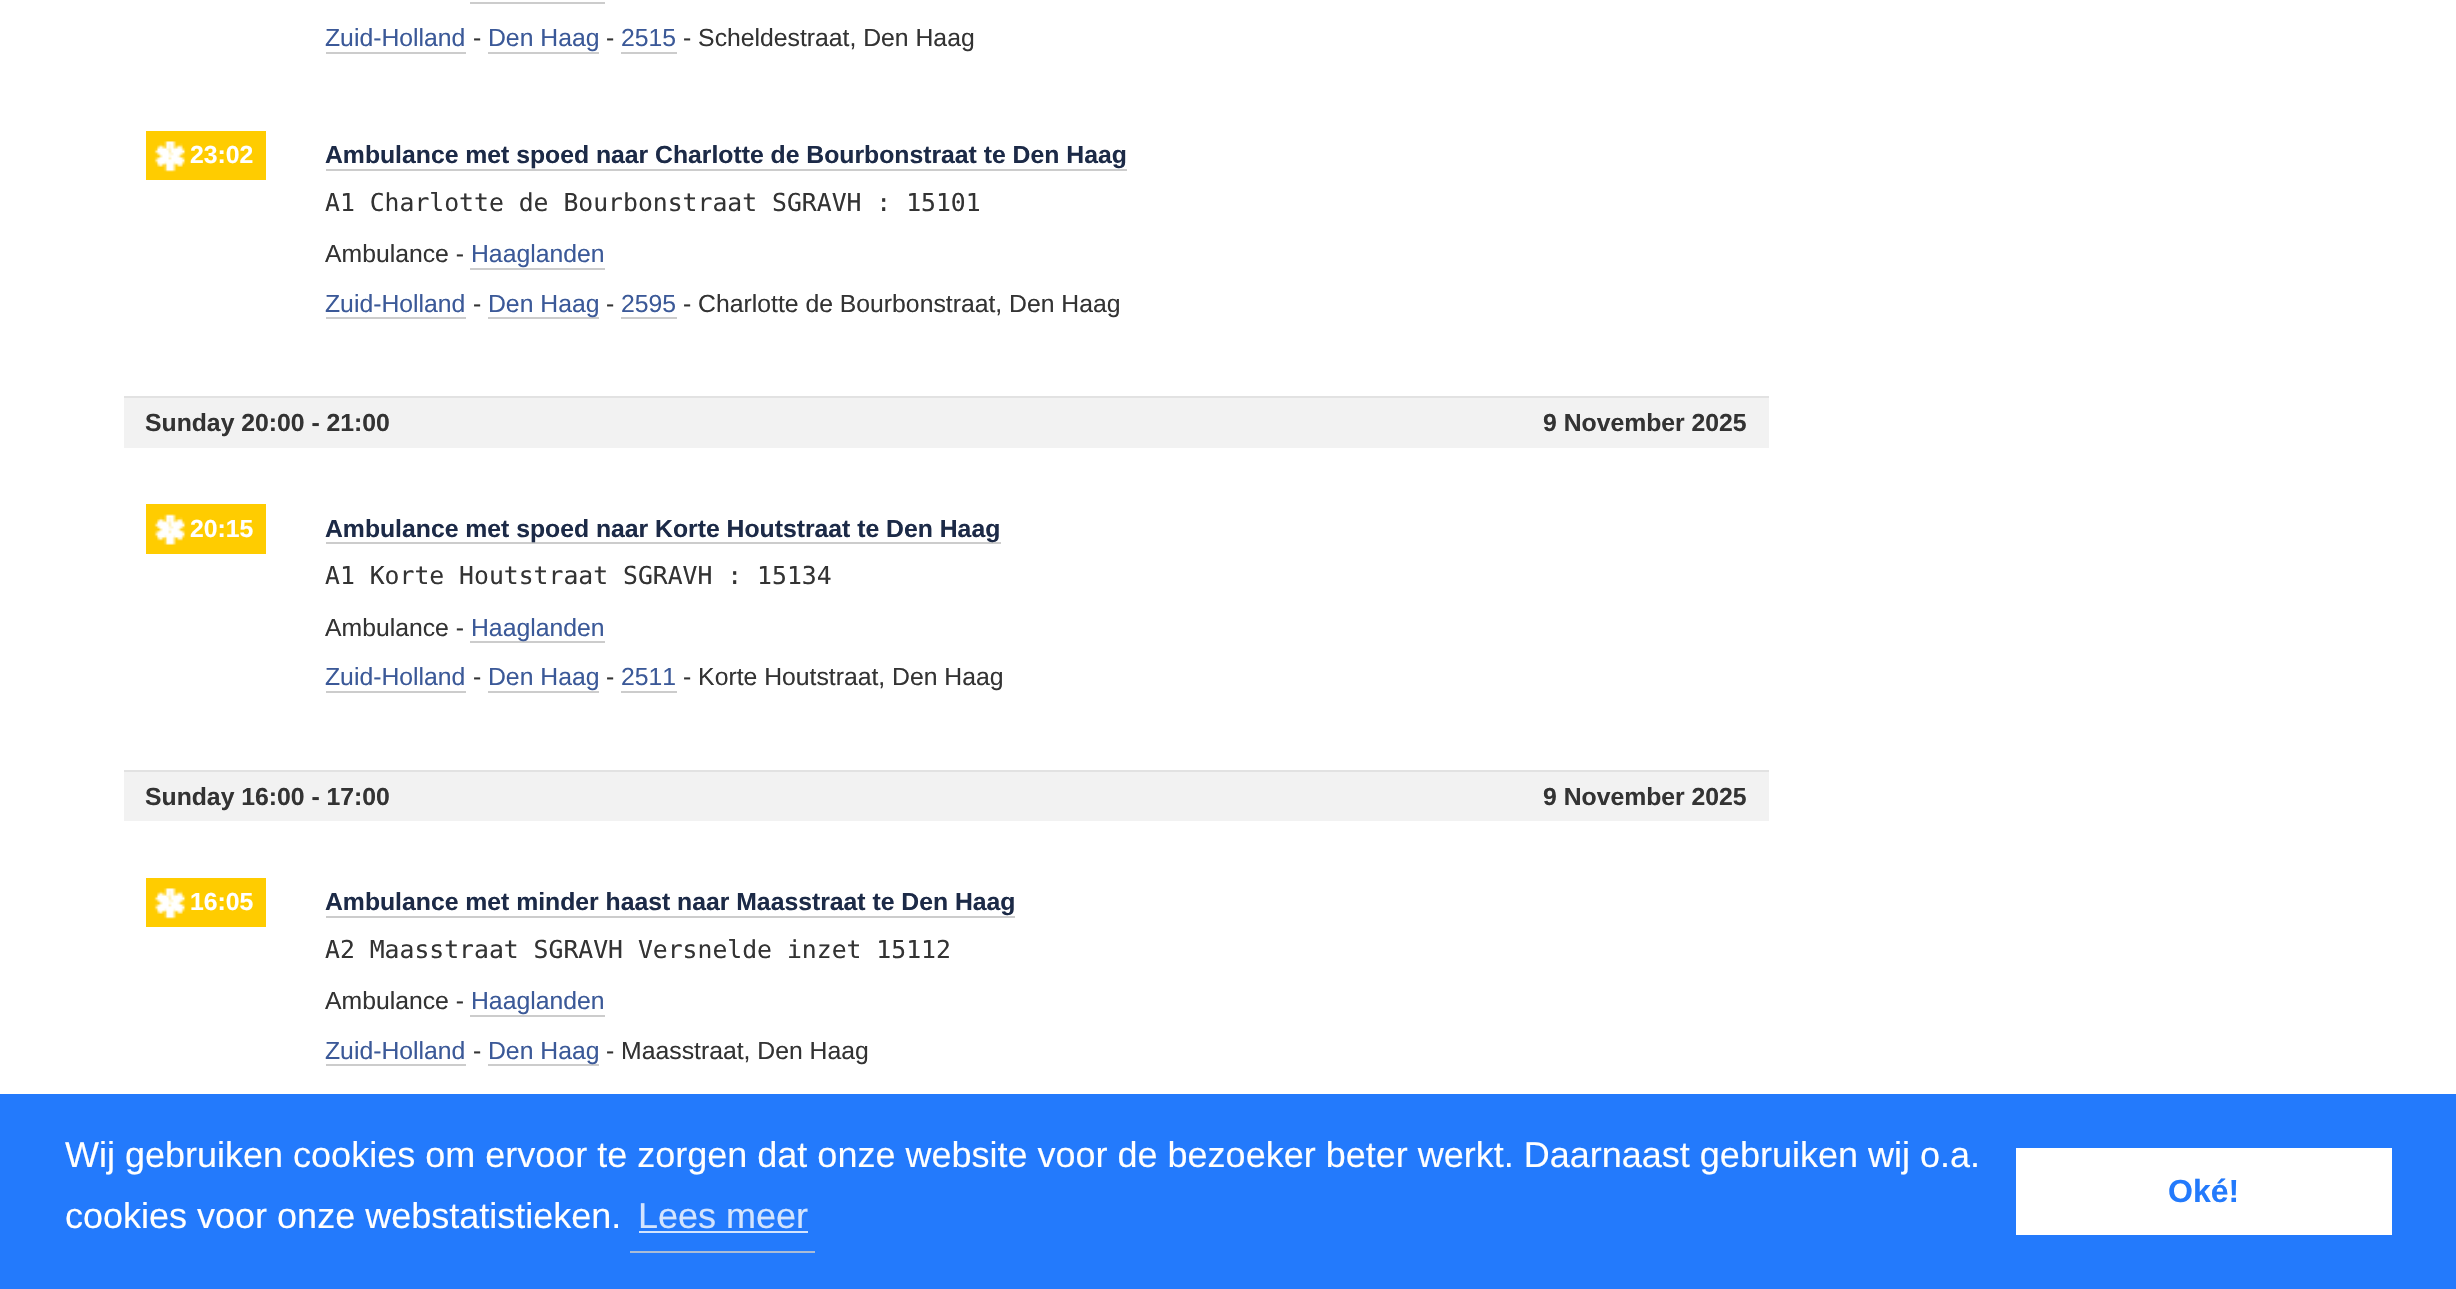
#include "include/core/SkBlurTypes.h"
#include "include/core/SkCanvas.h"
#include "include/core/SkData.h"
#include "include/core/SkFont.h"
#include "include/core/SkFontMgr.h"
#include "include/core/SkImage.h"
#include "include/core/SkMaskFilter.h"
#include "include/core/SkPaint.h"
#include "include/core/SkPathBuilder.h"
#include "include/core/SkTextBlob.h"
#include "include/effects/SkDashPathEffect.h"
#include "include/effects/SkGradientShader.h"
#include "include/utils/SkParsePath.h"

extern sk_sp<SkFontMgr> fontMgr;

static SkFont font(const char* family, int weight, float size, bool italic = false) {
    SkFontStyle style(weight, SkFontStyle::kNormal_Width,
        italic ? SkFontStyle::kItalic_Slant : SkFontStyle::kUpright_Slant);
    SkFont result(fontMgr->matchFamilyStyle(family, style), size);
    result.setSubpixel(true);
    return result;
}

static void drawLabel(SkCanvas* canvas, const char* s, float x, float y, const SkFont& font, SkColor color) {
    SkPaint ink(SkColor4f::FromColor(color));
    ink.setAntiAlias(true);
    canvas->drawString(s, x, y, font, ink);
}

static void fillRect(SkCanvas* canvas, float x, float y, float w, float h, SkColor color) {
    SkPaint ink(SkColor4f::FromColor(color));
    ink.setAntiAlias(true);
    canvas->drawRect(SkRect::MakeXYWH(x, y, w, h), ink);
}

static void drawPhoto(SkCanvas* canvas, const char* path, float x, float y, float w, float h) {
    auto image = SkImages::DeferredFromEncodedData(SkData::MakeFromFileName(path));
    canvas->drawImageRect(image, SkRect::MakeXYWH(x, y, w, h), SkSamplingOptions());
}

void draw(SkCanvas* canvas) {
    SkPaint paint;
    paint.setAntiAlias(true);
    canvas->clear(0xFFFFFFFF);
    fillRect(canvas, 470, 2, 135, 2, 0xFFCCCCCC);
    SkFont font1 = font("Liberation Sans", 400, 24.75f);
    drawLabel(canvas, "Zuid-Holland", 325, 46, font1, 0xFF3B5998);
    fillRect(canvas, 326, 52, 140, 2, 0xFFCCCCCC);
    drawLabel(canvas, "-", 473, 46, font1, 0xFF333333);
    drawLabel(canvas, "Den Haag", 488, 46, font1, 0xFF3B5998);
    fillRect(canvas, 488, 52, 111, 2, 0xFFCCCCCC);
    drawLabel(canvas, "-", 606, 46, font1, 0xFF333333);
    drawLabel(canvas, "2515", 621, 46, font1, 0xFF3B5998);
    fillRect(canvas, 621, 52, 56, 2, 0xFFCCCCCC);
    drawLabel(canvas, "- Scheldestraat, Den Haag", 683, 46, font1, 0xFF333333);
    fillRect(canvas, 146, 131, 120, 49, 0xFFFFCC00);
    drawPhoto(canvas, "assets/img1.png", 154, 141, 32, 31);
    SkFont font2 = font("Liberation Sans", 700, 24.75f);
    drawLabel(canvas, "23:02", 190, 163, font2, 0xFFFFFFFF);
    drawLabel(canvas, "Ambulance met spoed naar Charlotte de Bourbonstraat te Den Haag", 325, 163, font2, 0xFF1C2A47);
    fillRect(canvas, 326, 169, 801, 2, 0xFFCCCCCC);
    SkFont font3 = font("DejaVu Sans Mono", 400, 24.75f);
    drawLabel(canvas, "A1 Charlotte de Bourbonstraat SGRAVH : 15101", 325, 211, font3, 0xFF333333);
    drawLabel(canvas, "Ambulance -", 325, 262, font1, 0xFF333333);
    drawLabel(canvas, "Haaglanden", 471, 262, font1, 0xFF3B5998);
    fillRect(canvas, 470, 268, 135, 2, 0xFFCCCCCC);
    drawLabel(canvas, "Zuid-Holland", 325, 312, font1, 0xFF3B5998);
    fillRect(canvas, 326, 317, 140, 2, 0xFFCCCCCC);
    drawLabel(canvas, "-", 473, 312, font1, 0xFF333333);
    fillRect(canvas, 488, 317, 111, 2, 0xFFCCCCCC);
    drawLabel(canvas, "Den Haag", 488, 312, font1, 0xFF3B5998);
    drawLabel(canvas, "-", 606, 312, font1, 0xFF333333);
    drawLabel(canvas, "2595", 621, 312, font1, 0xFF3B5998);
    fillRect(canvas, 621, 317, 56, 2, 0xFFCCCCCC);
    drawLabel(canvas, "- Charlotte de Bourbonstraat, Den Haag", 683, 312, font1, 0xFF333333);
    fillRect(canvas, 124, 398, 1645, 50, 0xFFF2F2F2);
    fillRect(canvas, 124, 396, 1645, 2, 0xFFE2E2E2);
    drawLabel(canvas, "Sunday 20:00 - 21:00", 145, 431, font2, 0xFF333333);
    drawLabel(canvas, "9 November 2025", 1543, 431, font2, 0xFF333333);
    fillRect(canvas, 146, 504, 120, 50, 0xFFFFCC00);
    drawPhoto(canvas, "assets/img2.png", 154, 514, 32, 31);
    drawLabel(canvas, "20:15", 190, 537, font2, 0xFFFFFFFF);
    fillRect(canvas, 326, 542, 675, 2, 0xFFCCCCCC);
    drawLabel(canvas, "Ambulance met spoed naar Korte Houtstraat te Den Haag", 325, 537, font2, 0xFF1C2A47);
    drawLabel(canvas, "A1 Korte Houtstraat SGRAVH : 15134", 325, 584, font3, 0xFF333333);
    drawLabel(canvas, "Ambulance -", 325, 636, font1, 0xFF333333);
    fillRect(canvas, 470, 641, 135, 2, 0xFFCCCCCC);
    drawLabel(canvas, "Haaglanden", 471, 636, font1, 0xFF3B5998);
    drawLabel(canvas, "Zuid-Holland", 325, 685, font1, 0xFF3B5998);
    fillRect(canvas, 326, 691, 140, 2, 0xFFCCCCCC);
    drawLabel(canvas, "-", 473, 685, font1, 0xFF333333);
    drawLabel(canvas, "Den Haag", 488, 685, font1, 0xFF3B5998);
    fillRect(canvas, 488, 691, 111, 2, 0xFFCCCCCC);
    drawLabel(canvas, "-", 606, 685, font1, 0xFF333333);
    drawLabel(canvas, "2511", 621, 685, font1, 0xFF3B5998);
    fillRect(canvas, 621, 691, 56, 2, 0xFFCCCCCC);
    drawLabel(canvas, "- Korte Houtstraat, Den Haag", 683, 685, font1, 0xFF333333);
    fillRect(canvas, 124, 772, 1645, 49, 0xFFF2F2F2);
    fillRect(canvas, 124, 770, 1645, 2, 0xFFE2E2E2);
    drawLabel(canvas, "Sunday 16:00 - 17:00", 145, 805, font2, 0xFF333333);
    drawLabel(canvas, "9 November 2025", 1543, 805, font2, 0xFF333333);
    fillRect(canvas, 146, 878, 120, 49, 0xFFFFCC00);
    drawPhoto(canvas, "assets/img1.png", 154, 888, 32, 31);
    drawLabel(canvas, "16:05", 190, 910, font2, 0xFFFFFFFF);
    drawLabel(canvas, "Ambulance met minder haast naar Maasstraat te Den Haag", 325, 910, font2, 0xFF1C2A47);
    fillRect(canvas, 326, 916, 689, 2, 0xFFCCCCCC);
    drawLabel(canvas, "A2 Maasstraat SGRAVH Versnelde inzet 15112", 325, 958, font3, 0xFF333333);
    drawLabel(canvas, "Ambulance -", 325, 1009, font1, 0xFF333333);
    drawLabel(canvas, "Haaglanden", 471, 1009, font1, 0xFF3B5998);
    fillRect(canvas, 470, 1015, 135, 2, 0xFFCCCCCC);
    drawLabel(canvas, "Zuid-Holland", 325, 1059, font1, 0xFF3B5998);
    fillRect(canvas, 326, 1064, 140, 2, 0xFFCCCCCC);
    drawLabel(canvas, "-", 473, 1059, font1, 0xFF333333);
    fillRect(canvas, 488, 1064, 111, 2, 0xFFCCCCCC);
    drawLabel(canvas, "Den Haag", 488, 1059, font1, 0xFF3B5998);
    drawLabel(canvas, "- Maasstraat, Den Haag", 606, 1059, font1, 0xFF333333);
    fillRect(canvas, 0, 1094, 2456, 195, 0xFF237AFC);
    SkFont font4 = font("Liberation Sans", 400, 36);
    drawLabel(canvas, "Wij gebruiken cookies om ervoor te zorgen dat onze website voor de bezoeker beter werkt. Daarnaast gebruiken wij o.a.", 65, 1167, font4, 0xFFFFFFFF);
    drawLabel(canvas, "cookies voor onze webstatistieken.", 65, 1228, font4, 0xFFFFFFFF);
    fillRect(canvas, 630, 1251, 185, 2, 0xFFAABCD6);
    drawLabel(canvas, "Lees meer", 638, 1228, font4, 0xFFD3E4FE);
    fillRect(canvas, 639, 1231, 169, 2, 0xFFD3E4FE);
    fillRect(canvas, 2016, 1148, 376, 87, 0xFFFFFFFF);
    SkFont font5 = font("Liberation Sans", 700, 32);
    drawLabel(canvas, "Oké!", 2168, 1202, font5, 0xFF237AFC);
}
